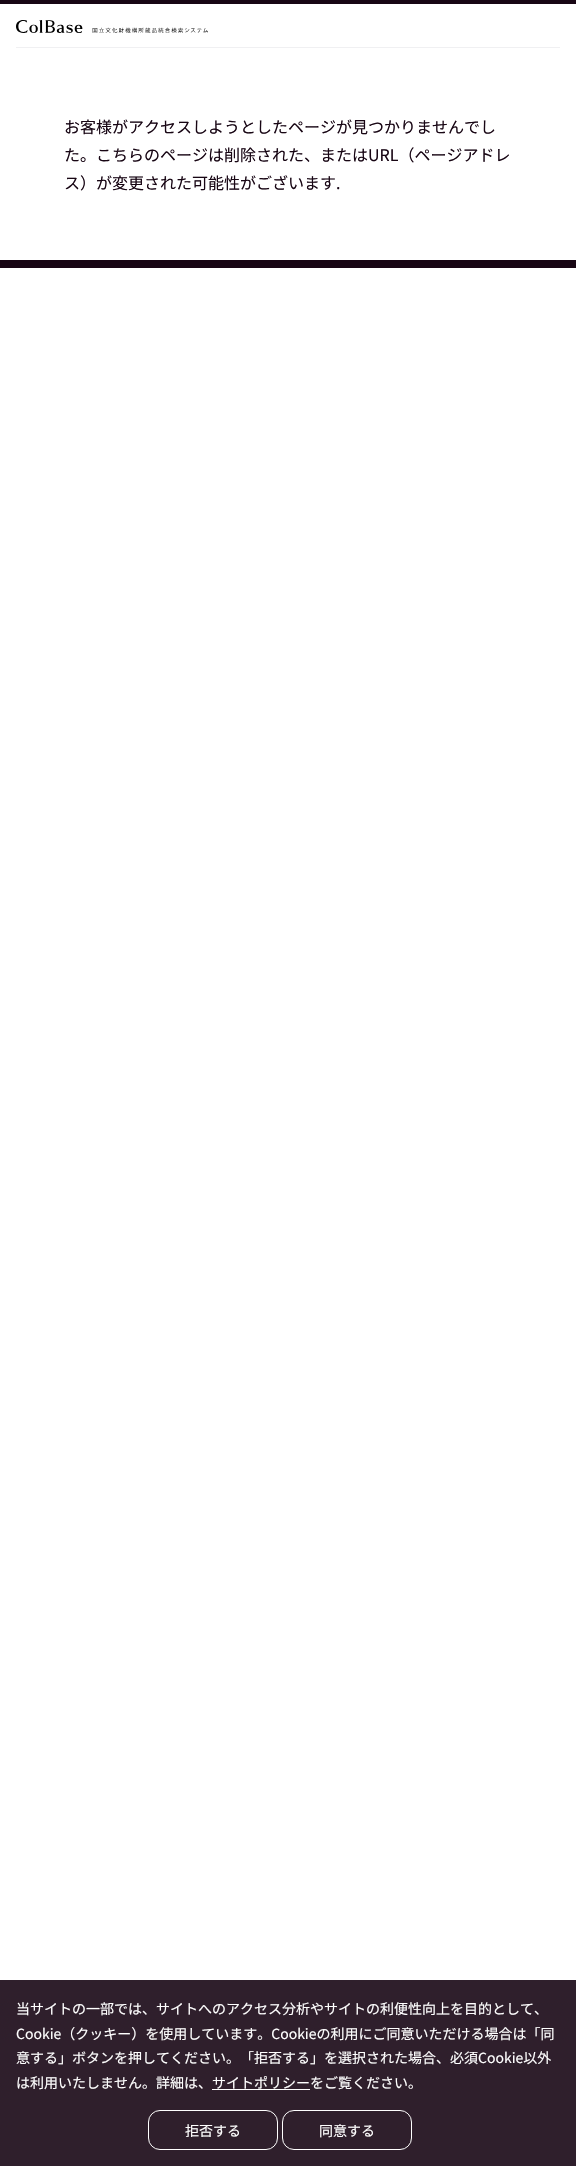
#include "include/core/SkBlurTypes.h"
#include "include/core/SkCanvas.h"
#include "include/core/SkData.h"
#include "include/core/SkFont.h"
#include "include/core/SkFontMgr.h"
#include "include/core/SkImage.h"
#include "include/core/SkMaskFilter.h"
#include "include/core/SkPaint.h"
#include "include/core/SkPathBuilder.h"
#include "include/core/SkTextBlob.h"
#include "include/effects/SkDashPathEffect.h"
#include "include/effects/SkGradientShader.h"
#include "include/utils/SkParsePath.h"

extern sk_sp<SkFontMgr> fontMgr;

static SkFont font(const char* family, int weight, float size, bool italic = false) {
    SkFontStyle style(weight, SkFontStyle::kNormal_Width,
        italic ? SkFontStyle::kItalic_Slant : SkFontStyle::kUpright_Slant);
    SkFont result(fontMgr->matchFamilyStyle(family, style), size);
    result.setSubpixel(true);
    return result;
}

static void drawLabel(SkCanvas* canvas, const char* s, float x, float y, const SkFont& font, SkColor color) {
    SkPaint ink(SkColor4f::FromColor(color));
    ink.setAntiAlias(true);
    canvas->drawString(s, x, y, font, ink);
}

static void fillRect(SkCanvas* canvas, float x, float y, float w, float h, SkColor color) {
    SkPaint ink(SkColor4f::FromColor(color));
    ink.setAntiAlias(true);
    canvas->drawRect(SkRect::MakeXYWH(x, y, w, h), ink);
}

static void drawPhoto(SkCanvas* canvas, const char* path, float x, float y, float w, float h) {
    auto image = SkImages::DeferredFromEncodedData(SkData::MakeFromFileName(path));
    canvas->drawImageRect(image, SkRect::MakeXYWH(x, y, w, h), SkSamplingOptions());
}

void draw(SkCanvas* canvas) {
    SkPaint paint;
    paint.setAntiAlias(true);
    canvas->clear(0xFFFFFFFF);
    fillRect(canvas, 0, 260, 576, 8, 0xFF180614);
    fillRect(canvas, 0, 0, 576, 4, 0xFF180614);
    drawPhoto(canvas, "assets/img1.png", 16, 20, 192, 13);
    fillRect(canvas, 16, 47, 544, 1, 0xFFF0F0F2);
    SkFont font1 = font("Noto Sans JP", 400, 16);
    drawLabel(canvas, "お客様がアクセスしようとしたページが見つかりませんでし", 64, 133, font1, 0xFF180614);
    drawLabel(canvas, "た。こちらのページは削除された、またはURL（ページアドレ", 64, 161, font1, 0xFF180614);
    drawLabel(canvas, "ス）が変更された可能性がございます.", 64, 189, font1, 0xFF180614);
    fillRect(canvas, 0, 1980, 576, 186, 0xFF2F1F2C);
    SkFont font2 = font("Noto Sans JP", 400, 14);
    drawLabel(canvas, "当サイトの一部では、サイトへのアクセス分析やサイトの利便性向上を目的として、", 16, 2014, font2, 0xFFFFFFFF);
    drawLabel(canvas, "Cookie（クッキー）を使用しています。Cookieの利用にご同意いただける場合は「同", 16, 2039, font2, 0xFFFFFFFF);
    drawLabel(canvas, "意する」ボタンを押してください。「拒否する」を選択された場合、必須Cookie以外", 16, 2063, font2, 0xFFFFFFFF);
    drawLabel(canvas, "は利用いたしません。詳細は、サイトポリシーをご覧ください。", 16, 2088, font2, 0xFFFFFFFF);
    fillRect(canvas, 212, 2089, 98, 1, 0xFFFFFFFF);
    paint.setStroke(true);
    paint.setStrokeWidth(1);
    paint.setColor(0xFFFFFFFF);
    canvas->drawRoundRect(SkRect::MakeXYWH(148.5f, 2110.5f, 129, 39), 11.5f, 11.5f, paint);
    drawLabel(canvas, "拒否する", 185, 2136, font2, 0xFFFFFFFF);
    canvas->drawRoundRect(SkRect::MakeXYWH(282.5f, 2110.5f, 129, 39), 11.5f, 11.5f, paint);
    drawLabel(canvas, "同意する", 319, 2136, font2, 0xFFFFFFFF);
}
